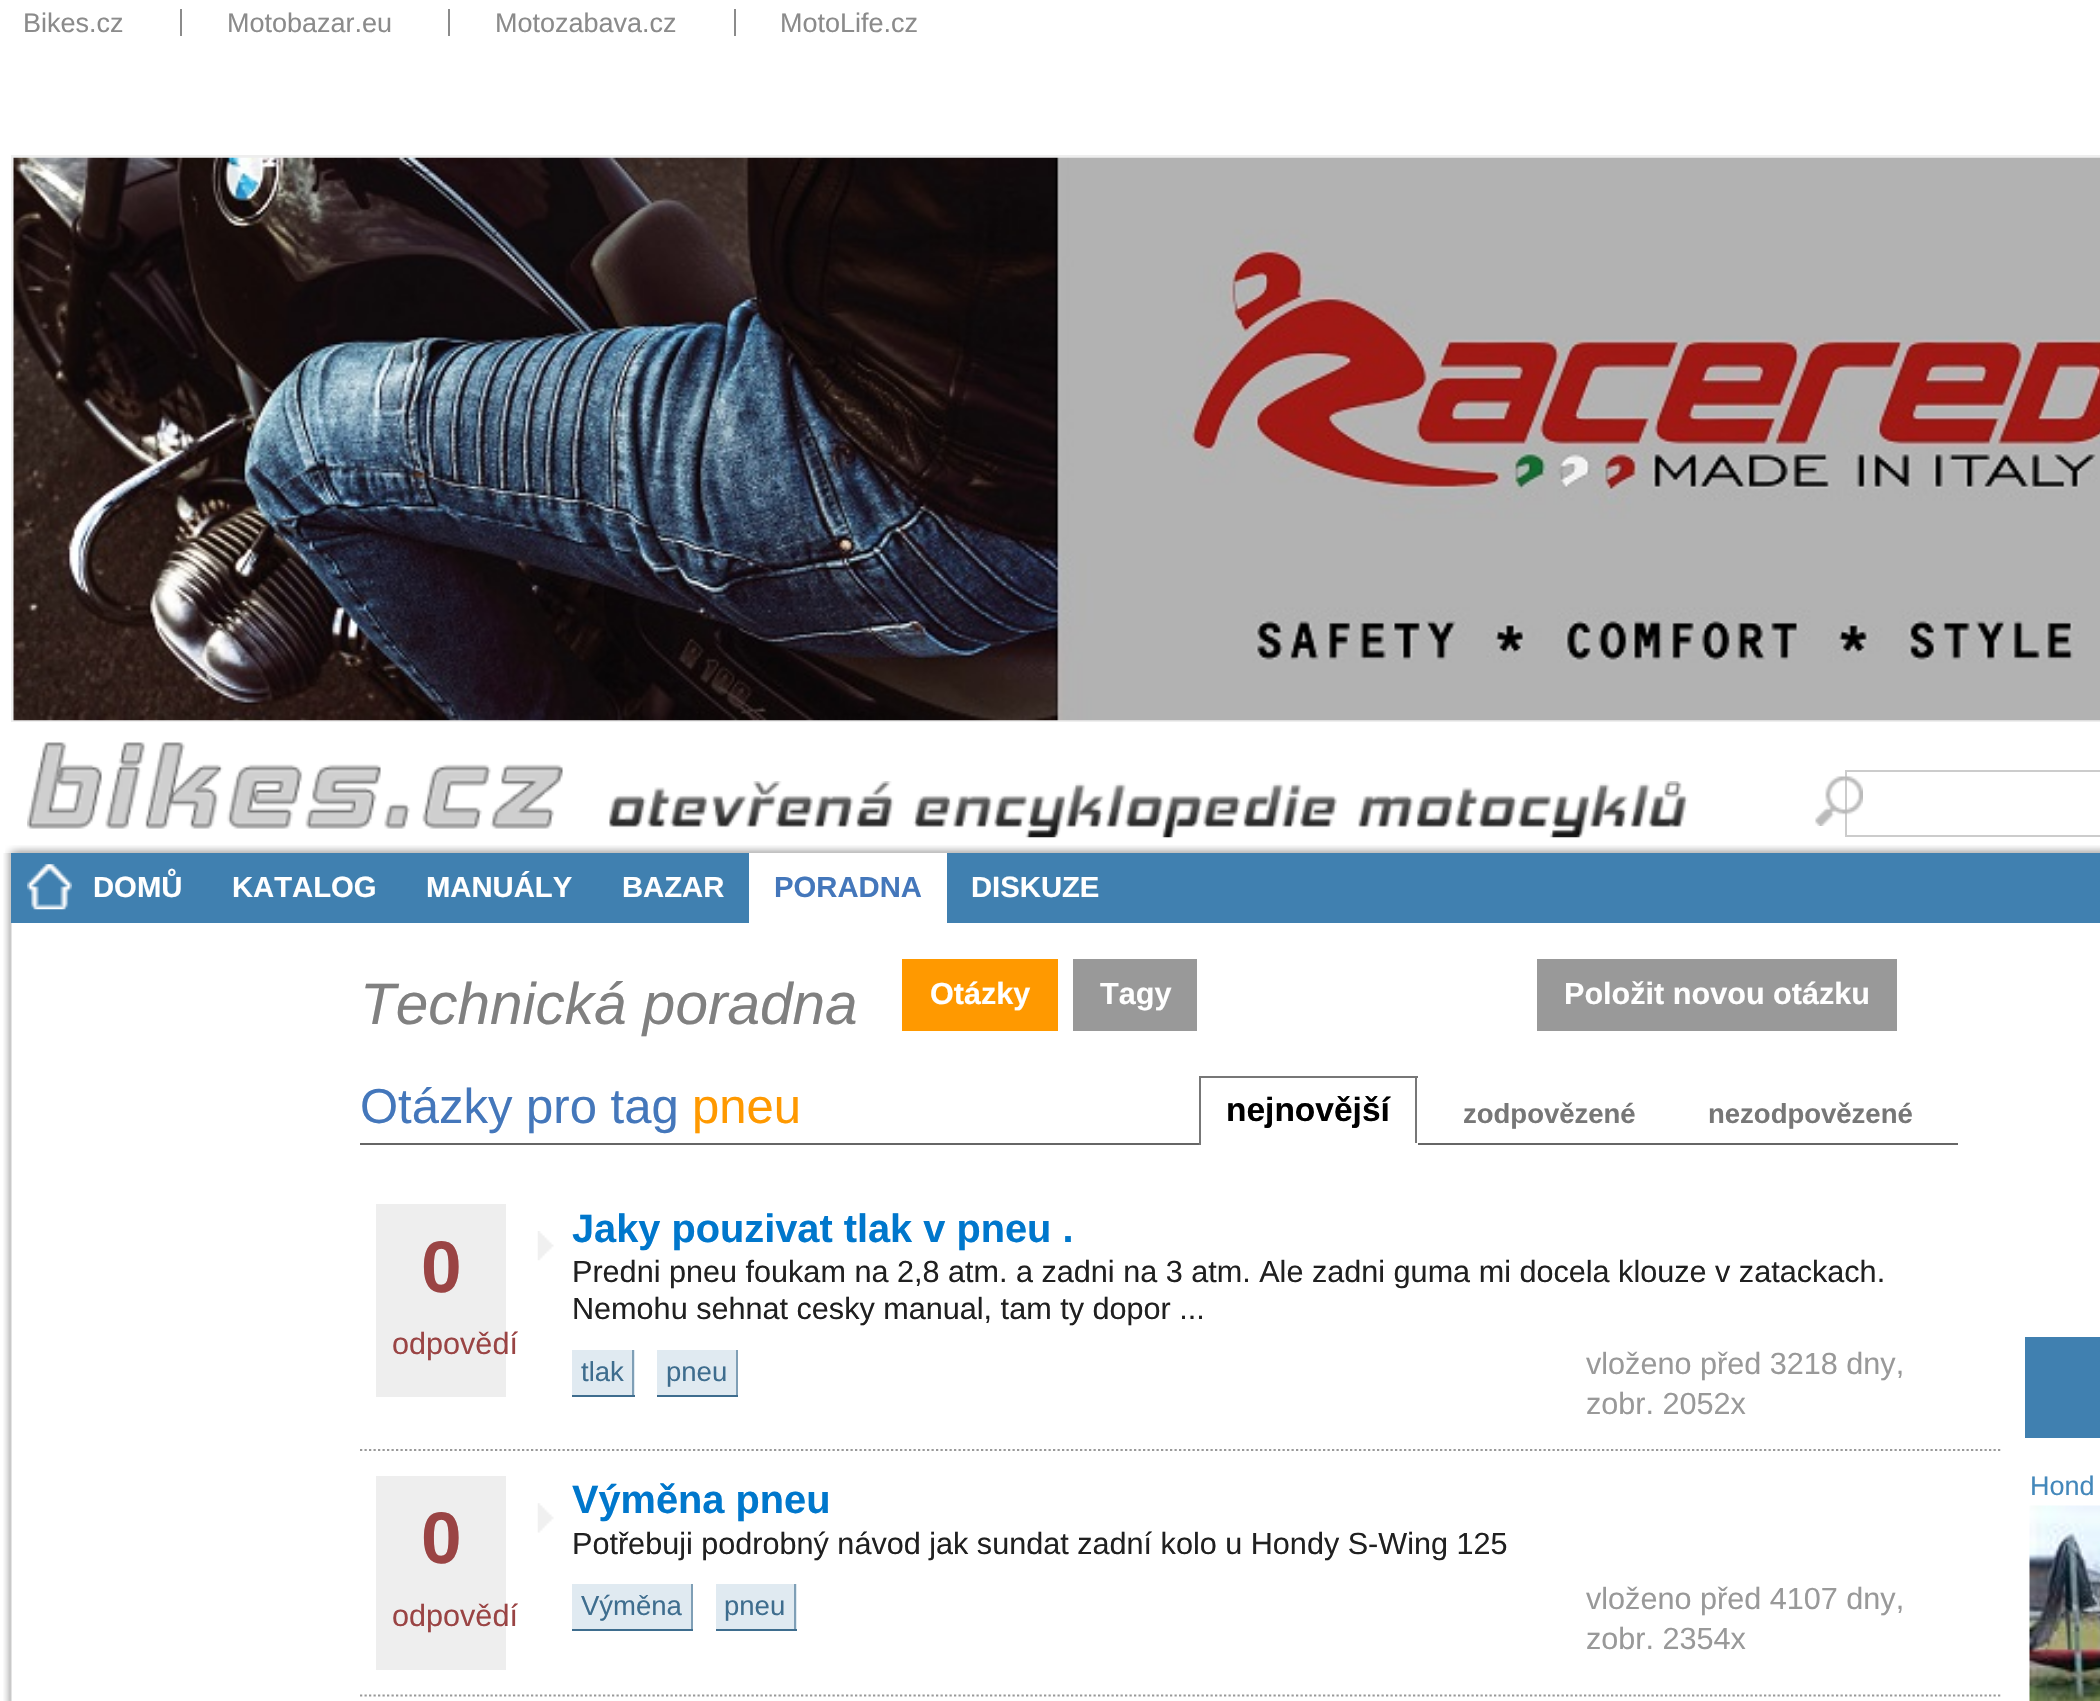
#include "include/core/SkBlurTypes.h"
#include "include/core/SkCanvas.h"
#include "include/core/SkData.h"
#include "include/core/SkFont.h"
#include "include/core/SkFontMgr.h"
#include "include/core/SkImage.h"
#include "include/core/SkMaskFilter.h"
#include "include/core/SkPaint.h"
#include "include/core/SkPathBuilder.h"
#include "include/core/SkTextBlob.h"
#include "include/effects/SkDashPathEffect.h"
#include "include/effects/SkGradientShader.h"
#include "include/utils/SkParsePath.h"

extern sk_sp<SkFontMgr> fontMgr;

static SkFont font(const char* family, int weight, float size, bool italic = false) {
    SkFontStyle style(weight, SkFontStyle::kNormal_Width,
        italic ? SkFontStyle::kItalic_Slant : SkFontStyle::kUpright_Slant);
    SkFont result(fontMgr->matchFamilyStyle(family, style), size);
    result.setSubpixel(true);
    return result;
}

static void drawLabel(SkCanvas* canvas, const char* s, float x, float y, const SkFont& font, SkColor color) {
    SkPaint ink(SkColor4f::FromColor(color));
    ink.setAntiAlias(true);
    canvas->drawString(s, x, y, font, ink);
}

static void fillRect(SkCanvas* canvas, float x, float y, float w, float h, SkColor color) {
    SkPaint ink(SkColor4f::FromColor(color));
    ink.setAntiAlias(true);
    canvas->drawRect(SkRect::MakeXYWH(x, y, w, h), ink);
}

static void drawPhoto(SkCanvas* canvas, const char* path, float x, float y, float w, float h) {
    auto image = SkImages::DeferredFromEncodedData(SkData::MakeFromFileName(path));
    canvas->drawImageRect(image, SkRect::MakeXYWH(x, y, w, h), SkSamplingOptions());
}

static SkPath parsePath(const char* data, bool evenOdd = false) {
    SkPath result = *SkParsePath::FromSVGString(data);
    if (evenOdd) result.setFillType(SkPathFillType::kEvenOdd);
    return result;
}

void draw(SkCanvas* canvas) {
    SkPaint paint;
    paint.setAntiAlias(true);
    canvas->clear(0xFFFFFFFF);
    SkFont font1 = font("Liberation Sans", 400, 27);
    drawLabel(canvas, "Bikes.cz", 23, 32, font1, 0xFF8B8B8B);
    fillRect(canvas, 180, 9, 2, 27, 0xFF8B8B8B);
    drawLabel(canvas, "Motobazar.eu", 227, 32, font1, 0xFF8B8B8B);
    fillRect(canvas, 448, 9, 2, 27, 0xFF8B8B8B);
    drawLabel(canvas, "Motozabava.cz", 495, 32, font1, 0xFF8B8B8B);
    fillRect(canvas, 734, 9, 2, 27, 0xFF8B8B8B);
    drawLabel(canvas, "MotoLife.cz", 780, 32, font1, 0xFF8B8B8B);
    fillRect(canvas, 11, 155, 2089, 567, 0xFFEEEEEE);
    drawPhoto(canvas, "assets/img1.png", 13, 157, 2087, 564);
    drawPhoto(canvas, "assets/img2.png", 27, 742, 536, 87);
    drawPhoto(canvas, "assets/img3.png", 609, 781, 1079, 57);
    paint.setStroke(true);
    paint.setStrokeWidth(2);
    paint.setColor(0xFFCCCCCC);
    canvas->drawRect(SkRect::MakeXYWH(1846, 771, 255, 65), paint);
    drawPhoto(canvas, "assets/img4.png", 1815, 776, 48, 50);
    drawPhoto(canvas, "assets/img5.png", 5, 845, 2095, 8);
    drawPhoto(canvas, "assets/img6.png", 3, 853, 9, 848);
    fillRect(canvas, 11, 853, 2089, 70, 0xFF4080B0);
    drawPhoto(canvas, "assets/img7.png", 27, 864, 45, 46);
    SkFont font2 = font("Liberation Sans", 700, 29.25f);
    drawLabel(canvas, "DOMŮ", 93, 897, font2, 0xFFFFFFFF);
    drawLabel(canvas, "KATALOG", 232, 897, font2, 0xFFFFFFFF);
    drawLabel(canvas, "MANUÁLY", 426, 897, font2, 0xFFFFFFFF);
    drawLabel(canvas, "BAZAR", 622, 897, font2, 0xFFFFFFFF);
    fillRect(canvas, 749, 853, 198, 70, 0xFFFFFFFF);
    drawLabel(canvas, "PORADNA", 774, 897, font2, 0xFF4477BB);
    drawLabel(canvas, "DISKUZE", 971, 897, font2, 0xFFFFFFFF);
    SkFont font3 = font("Liberation Sans", 400, 58.5f, true);
    drawLabel(canvas, "Technická poradna", 360, 1024, font3, 0xFF808080);
    fillRect(canvas, 902, 959, 156, 72, 0xFFFF9900);
    SkFont font4 = font("Liberation Sans", 700, 30.6f);
    drawLabel(canvas, "Otázky", 930, 1004, font4, 0xFFFFFFFF);
    fillRect(canvas, 1073, 959, 124, 72, 0xFF999999);
    drawLabel(canvas, "Tagy", 1100, 1004, font4, 0xFFFFFFFF);
    fillRect(canvas, 1537, 959, 360, 72, 0xFF999999);
    drawLabel(canvas, "Položit novou otázku", 1564, 1004, font4, 0xFFFFFFFF);
    fillRect(canvas, 360, 1143, 1598, 2, 0xFF666666);
    SkFont font5 = font("Liberation Sans", 400, 49);
    drawLabel(canvas, "Otázky pro tag", 360, 1123, font5, 0xFF4477BB);
    drawLabel(canvas, "pneu", 692, 1123, font5, 0xFFFF9900);
    fillRect(canvas, 1199, 1076, 219, 2, 0xFF777777);
    fillRect(canvas, 1415, 1076, 2, 69, 0xFF777777);
    fillRect(canvas, 1199, 1143, 219, 2, 0xFFFFFFFF);
    fillRect(canvas, 1199, 1076, 2, 69, 0xFF777777);
    SkFont font6 = font("Liberation Sans", 700, 33.5f);
    drawLabel(canvas, "nejnovější", 1226, 1121, font6, 0xFF000000);
    SkFont font7 = font("Liberation Sans", 700, 27.5f);
    drawLabel(canvas, "zodpovězené", 1463, 1123, font7, 0xFF777777);
    drawLabel(canvas, "nezodpovězené", 1708, 1123, font7, 0xFF777777);
    paint.setStrokeWidth(2.2f);
    paint.setColor(0xFF999999);
    paint.setPathEffect(SkDashPathEffect::Make({{2.25f, 2.25f}}, 0));
    canvas->drawPath(parsePath("M360 1450H2002.5"), paint);
    paint.setPathEffect(nullptr);
    fillRect(canvas, 376, 1204, 130, 193, 0xFFEEEEEE);
    SkFont font8 = font("Liberation Sans", 700, 73);
    drawLabel(canvas, "0", 421, 1292, font8, 0xFF9A4444);
    SkFont font9 = font("Liberation Sans", 400, 30.6f);
    drawLabel(canvas, "odpovědí", 392, 1354, font9, 0xFF9A4444);
    drawPhoto(canvas, "assets/img8.png", 537, 1231, 17, 30);
    SkFont font10 = font("Liberation Sans", 700, 39.75f);
    drawLabel(canvas, "Jaky pouzivat tlak v pneu .", 572, 1242, font10, 0xFF0077CC);
    drawLabel(canvas, "Predni pneu foukam na 2,8 atm. a zadni na 3 atm. Ale zadni guma mi docela klouze v zatackach.", 572, 1282, font9, 0xFF202020);
    drawLabel(canvas, "Nemohu sehnat cesky manual, tam ty dopor ...", 572, 1319, font9, 0xFF202020);
    fillRect(canvas, 572, 1350, 63, 45, 0xFFE0EAF1);
    SkFont font11 = font("Liberation Sans", 400, 27.5f);
    drawLabel(canvas, "tlak", 581, 1381, font11, 0xFF3E6D8E);
    fillRect(canvas, 632, 1350, 2, 47, 0xFF7F9FB6);
    fillRect(canvas, 572, 1395, 63, 2, 0xFF3E6D8E);
    fillRect(canvas, 657, 1350, 79, 45, 0xFFE0EAF1);
    drawLabel(canvas, "pneu", 666, 1381, font11, 0xFF3E6D8E);
    fillRect(canvas, 736, 1350, 2, 47, 0xFF7F9FB6);
    fillRect(canvas, 657, 1395, 81, 2, 0xFF3E6D8E);
    drawLabel(canvas, "vloženo před 3218 dny,", 1586, 1374, font9, 0xFF999999);
    drawLabel(canvas, "zobr. 2052x", 1586, 1414, font9, 0xFF999999);
    paint.setPathEffect(SkDashPathEffect::Make({{2.25f, 2.25f}}, 0));
    canvas->drawPath(parsePath("M360 1695.5H2002.5"), paint);
    paint.setPathEffect(nullptr);
    fillRect(canvas, 376, 1476, 130, 194, 0xFFEEEEEE);
    drawLabel(canvas, "0", 421, 1563, font8, 0xFF9A4444);
    drawLabel(canvas, "odpovědí", 392, 1626, font9, 0xFF9A4444);
    drawPhoto(canvas, "assets/img9.png", 537, 1503, 17, 30);
    drawLabel(canvas, "Výměna pneu", 572, 1513, font10, 0xFF0077CC);
    drawLabel(canvas, "Potřebuji podrobný návod jak sundat zadní kolo u Hondy S-Wing 125", 572, 1554, font9, 0xFF202020);
    fillRect(canvas, 572, 1584, 119, 45, 0xFFE0EAF1);
    drawLabel(canvas, "Výměna", 581, 1615, font11, 0xFF3E6D8E);
    fillRect(canvas, 691, 1584, 2, 47, 0xFF7F9FB6);
    fillRect(canvas, 572, 1629, 121, 2, 0xFF3E6D8E);
    fillRect(canvas, 716, 1584, 81, 45, 0xFFE0EAF1);
    drawLabel(canvas, "pneu", 724, 1615, font11, 0xFF3E6D8E);
    fillRect(canvas, 794, 1584, 2, 47, 0xFF7F9FB6);
    fillRect(canvas, 716, 1629, 81, 2, 0xFF3E6D8E);
    drawLabel(canvas, "vloženo před 4107 dny,", 1586, 1609, font9, 0xFF999999);
    drawLabel(canvas, "zobr. 2354x", 1586, 1649, font9, 0xFF999999);
    fillRect(canvas, 2025, 1337, 75, 101, 0xFF4080B0);
    drawLabel(canvas, "Hond", 2030, 1495, font1, 0xFF4488BB);
    drawPhoto(canvas, "assets/img10.png", 2029, 1505, 71, 196);
}
